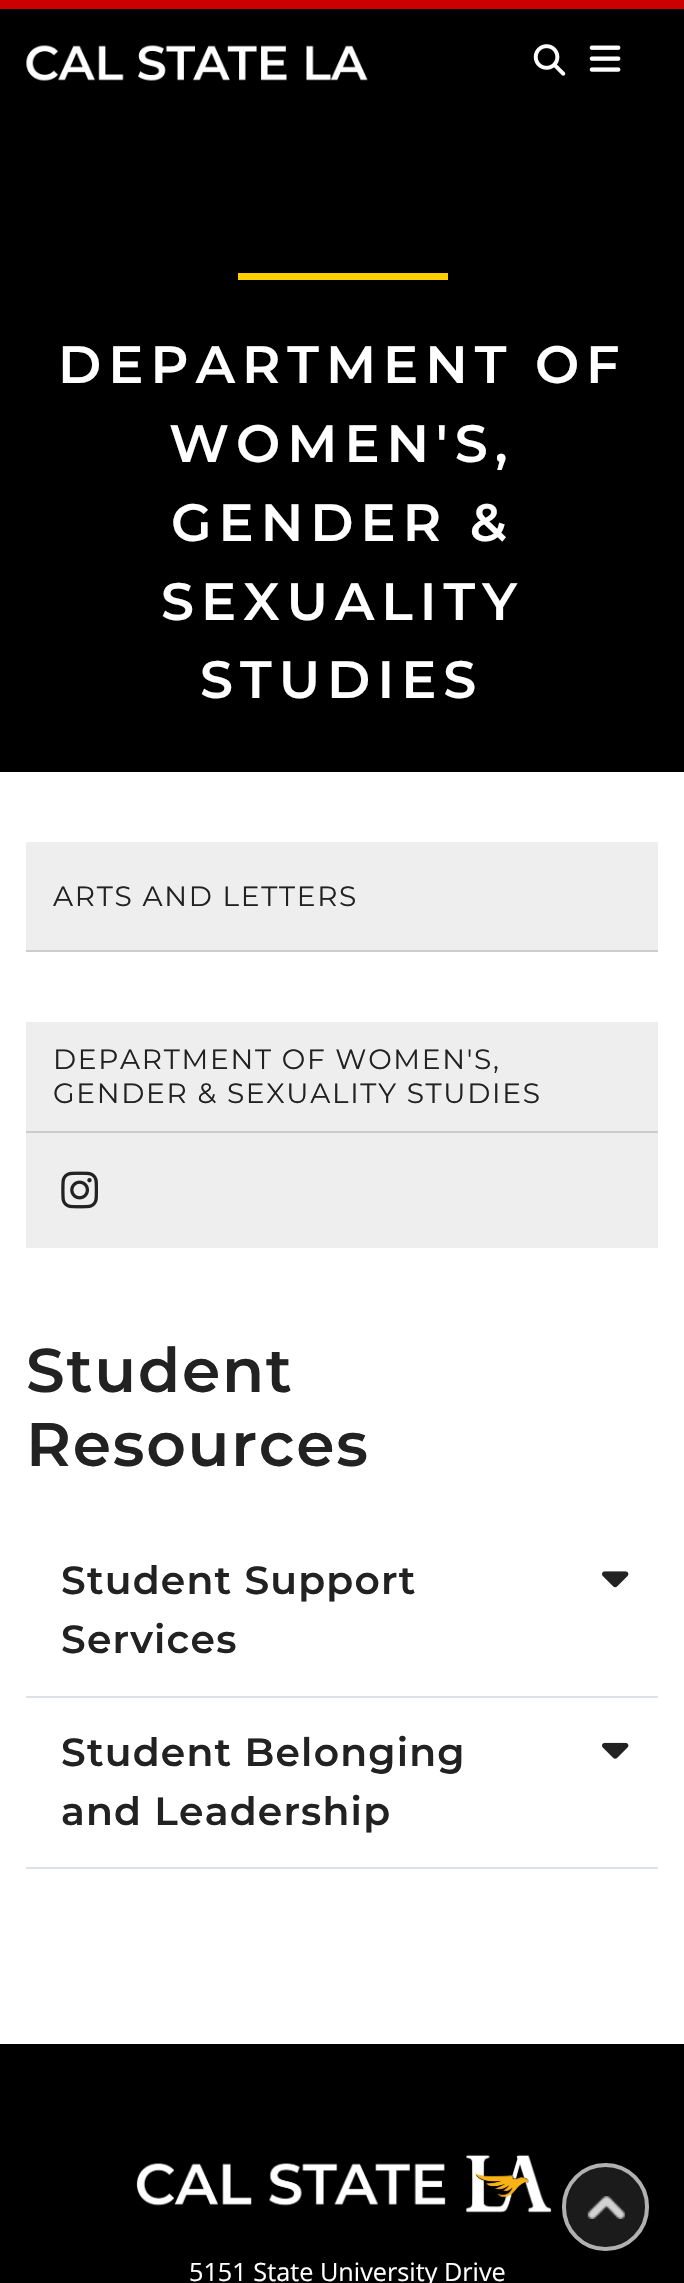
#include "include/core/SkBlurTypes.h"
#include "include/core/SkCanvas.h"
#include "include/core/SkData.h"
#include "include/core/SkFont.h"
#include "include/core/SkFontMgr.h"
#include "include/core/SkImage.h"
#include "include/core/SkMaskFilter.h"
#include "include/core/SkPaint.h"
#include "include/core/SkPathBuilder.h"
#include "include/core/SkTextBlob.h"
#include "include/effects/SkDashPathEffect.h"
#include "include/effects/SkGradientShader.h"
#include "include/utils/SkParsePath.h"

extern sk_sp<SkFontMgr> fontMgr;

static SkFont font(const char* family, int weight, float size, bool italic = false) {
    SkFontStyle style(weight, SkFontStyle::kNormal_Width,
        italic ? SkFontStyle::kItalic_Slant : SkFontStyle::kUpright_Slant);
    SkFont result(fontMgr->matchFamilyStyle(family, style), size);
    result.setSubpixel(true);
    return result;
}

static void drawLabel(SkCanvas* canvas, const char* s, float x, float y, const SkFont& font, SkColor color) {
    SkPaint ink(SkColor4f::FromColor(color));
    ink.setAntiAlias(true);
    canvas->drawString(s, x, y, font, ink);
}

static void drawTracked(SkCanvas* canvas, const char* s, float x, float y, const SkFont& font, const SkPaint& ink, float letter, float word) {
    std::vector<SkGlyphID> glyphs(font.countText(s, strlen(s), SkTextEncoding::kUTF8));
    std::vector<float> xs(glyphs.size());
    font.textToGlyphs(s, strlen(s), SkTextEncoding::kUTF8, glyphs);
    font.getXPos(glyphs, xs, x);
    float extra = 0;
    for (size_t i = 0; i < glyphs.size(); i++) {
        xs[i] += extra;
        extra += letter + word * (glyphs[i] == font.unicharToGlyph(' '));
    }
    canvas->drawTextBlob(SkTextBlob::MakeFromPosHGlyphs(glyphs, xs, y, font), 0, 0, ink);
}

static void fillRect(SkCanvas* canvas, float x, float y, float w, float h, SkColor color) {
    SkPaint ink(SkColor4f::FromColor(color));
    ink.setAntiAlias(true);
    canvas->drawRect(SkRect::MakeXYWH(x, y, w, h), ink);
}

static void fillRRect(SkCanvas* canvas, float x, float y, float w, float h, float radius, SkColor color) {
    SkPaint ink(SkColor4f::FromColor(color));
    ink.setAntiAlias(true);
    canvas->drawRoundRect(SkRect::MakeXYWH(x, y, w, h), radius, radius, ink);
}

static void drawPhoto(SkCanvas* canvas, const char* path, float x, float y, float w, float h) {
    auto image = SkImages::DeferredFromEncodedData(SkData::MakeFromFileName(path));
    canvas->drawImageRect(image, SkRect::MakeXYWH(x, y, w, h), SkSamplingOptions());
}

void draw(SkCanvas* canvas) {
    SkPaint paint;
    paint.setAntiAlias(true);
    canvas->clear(0xFFFFFFFF);
    fillRect(canvas, 0, 0, 684, 9, 0xFFCC0000);
    fillRect(canvas, 0, 9, 684, 763, 0xFF000000);
    drawPhoto(canvas, "assets/img1.png", 26, 45, 342, 36);
    drawPhoto(canvas, "assets/img2.png", 533, 44, 33, 32);
    drawPhoto(canvas, "assets/img3.png", 589, 45, 32, 27);
    fillRect(canvas, 238, 273, 210, 7, 0xFFFFCE00);
    SkFont font1 = font("Montserrat", 600, 52.5f);
    paint.setColor(0xFFFFFFFF);
    drawTracked(canvas, "DEPARTMENT OF", 58, 383, font1, paint, 7, 0);
    drawTracked(canvas, "WOMEN'S,", 169, 462, font1, paint, 7, 0);
    drawTracked(canvas, "GENDER &", 171, 541, font1, paint, 7, 0);
    drawTracked(canvas, "SEXUALITY", 161, 620, font1, paint, 7, 0);
    drawTracked(canvas, "STUDIES", 200, 698, font1, paint, 7, 0);
    fillRect(canvas, 26, 842, 632, 108, 0xFFEEEEEE);
    fillRect(canvas, 26, 950, 632, 2, 0xFFCCCCCC);
    SkFont font2 = font("Montserrat", 400, 28);
    paint.setColor(0xFF222222);
    drawTracked(canvas, "ARTS AND LETTERS", 53, 906, font2, paint, 1.7f, 0);
    fillRect(canvas, 26, 1022, 632, 109, 0xFFEEEEEE);
    fillRect(canvas, 26, 1131, 632, 2, 0xFFCCCCCC);
    drawTracked(canvas, "DEPARTMENT OF WOMEN'S,", 53, 1069, font2, paint, 1.7f, 0);
    drawTracked(canvas, "GENDER & SEXUALITY STUDIES", 53, 1103, font2, paint, 1.7f, 0);
    fillRect(canvas, 26, 1133, 632, 115, 0xFFEEEEEE);
    drawPhoto(canvas, "assets/img4.png", 61, 1171, 37, 38);
    SkFont font3 = font("Montserrat", 600, 61.5f);
    drawTracked(canvas, "Student", 26, 1392, font3, paint, 1.75f, 0);
    drawTracked(canvas, "Resources", 26, 1466, font3, paint, 1.75f, 0);
    fillRect(canvas, 26, 1696, 632, 2, 0xFFDEE2E6);
    SkFont font4 = font("Montserrat", 600, 39.25f);
    drawTracked(canvas, "Student Support", 61, 1594, font4, paint, 1.2f, 0);
    drawPhoto(canvas, "assets/img5.png", 602, 1571, 27, 17);
    drawTracked(canvas, "Services", 61, 1653, font4, paint, 1.2f, 0);
    fillRect(canvas, 26, 1867, 632, 2, 0xFFDEE2E6);
    drawTracked(canvas, "Student Belonging", 61, 1766, font4, paint, 1.2f, 0);
    drawPhoto(canvas, "assets/img6.png", 602, 1742, 27, 17);
    drawTracked(canvas, "and Leadership", 61, 1825, font4, paint, 1.2f, 0);
    fillRect(canvas, 0, 2044, 684, 239, 0xFF000000);
    drawPhoto(canvas, "assets/img7.png", 136, 2154, 416, 59);
    SkFont font5 = font("Open Sans", 400, 25.25f);
    drawLabel(canvas, "5151 State University Drive", 189, 2281, font5, 0xFFFFFFFF);
    fillRRect(canvas, 562, 2163, 87, 88, 43.5f, 0xFF1B1B1B);
    drawPhoto(canvas, "assets/img8.png", 587, 2196, 38, 23);
    paint.setStroke(true);
    paint.setStrokeWidth(4);
    paint.setColor(0xFFB1B1B1);
    canvas->drawRoundRect(SkRect::MakeXYWH(564, 2165, 83, 84), 41.5f, 41.5f, paint);
}
